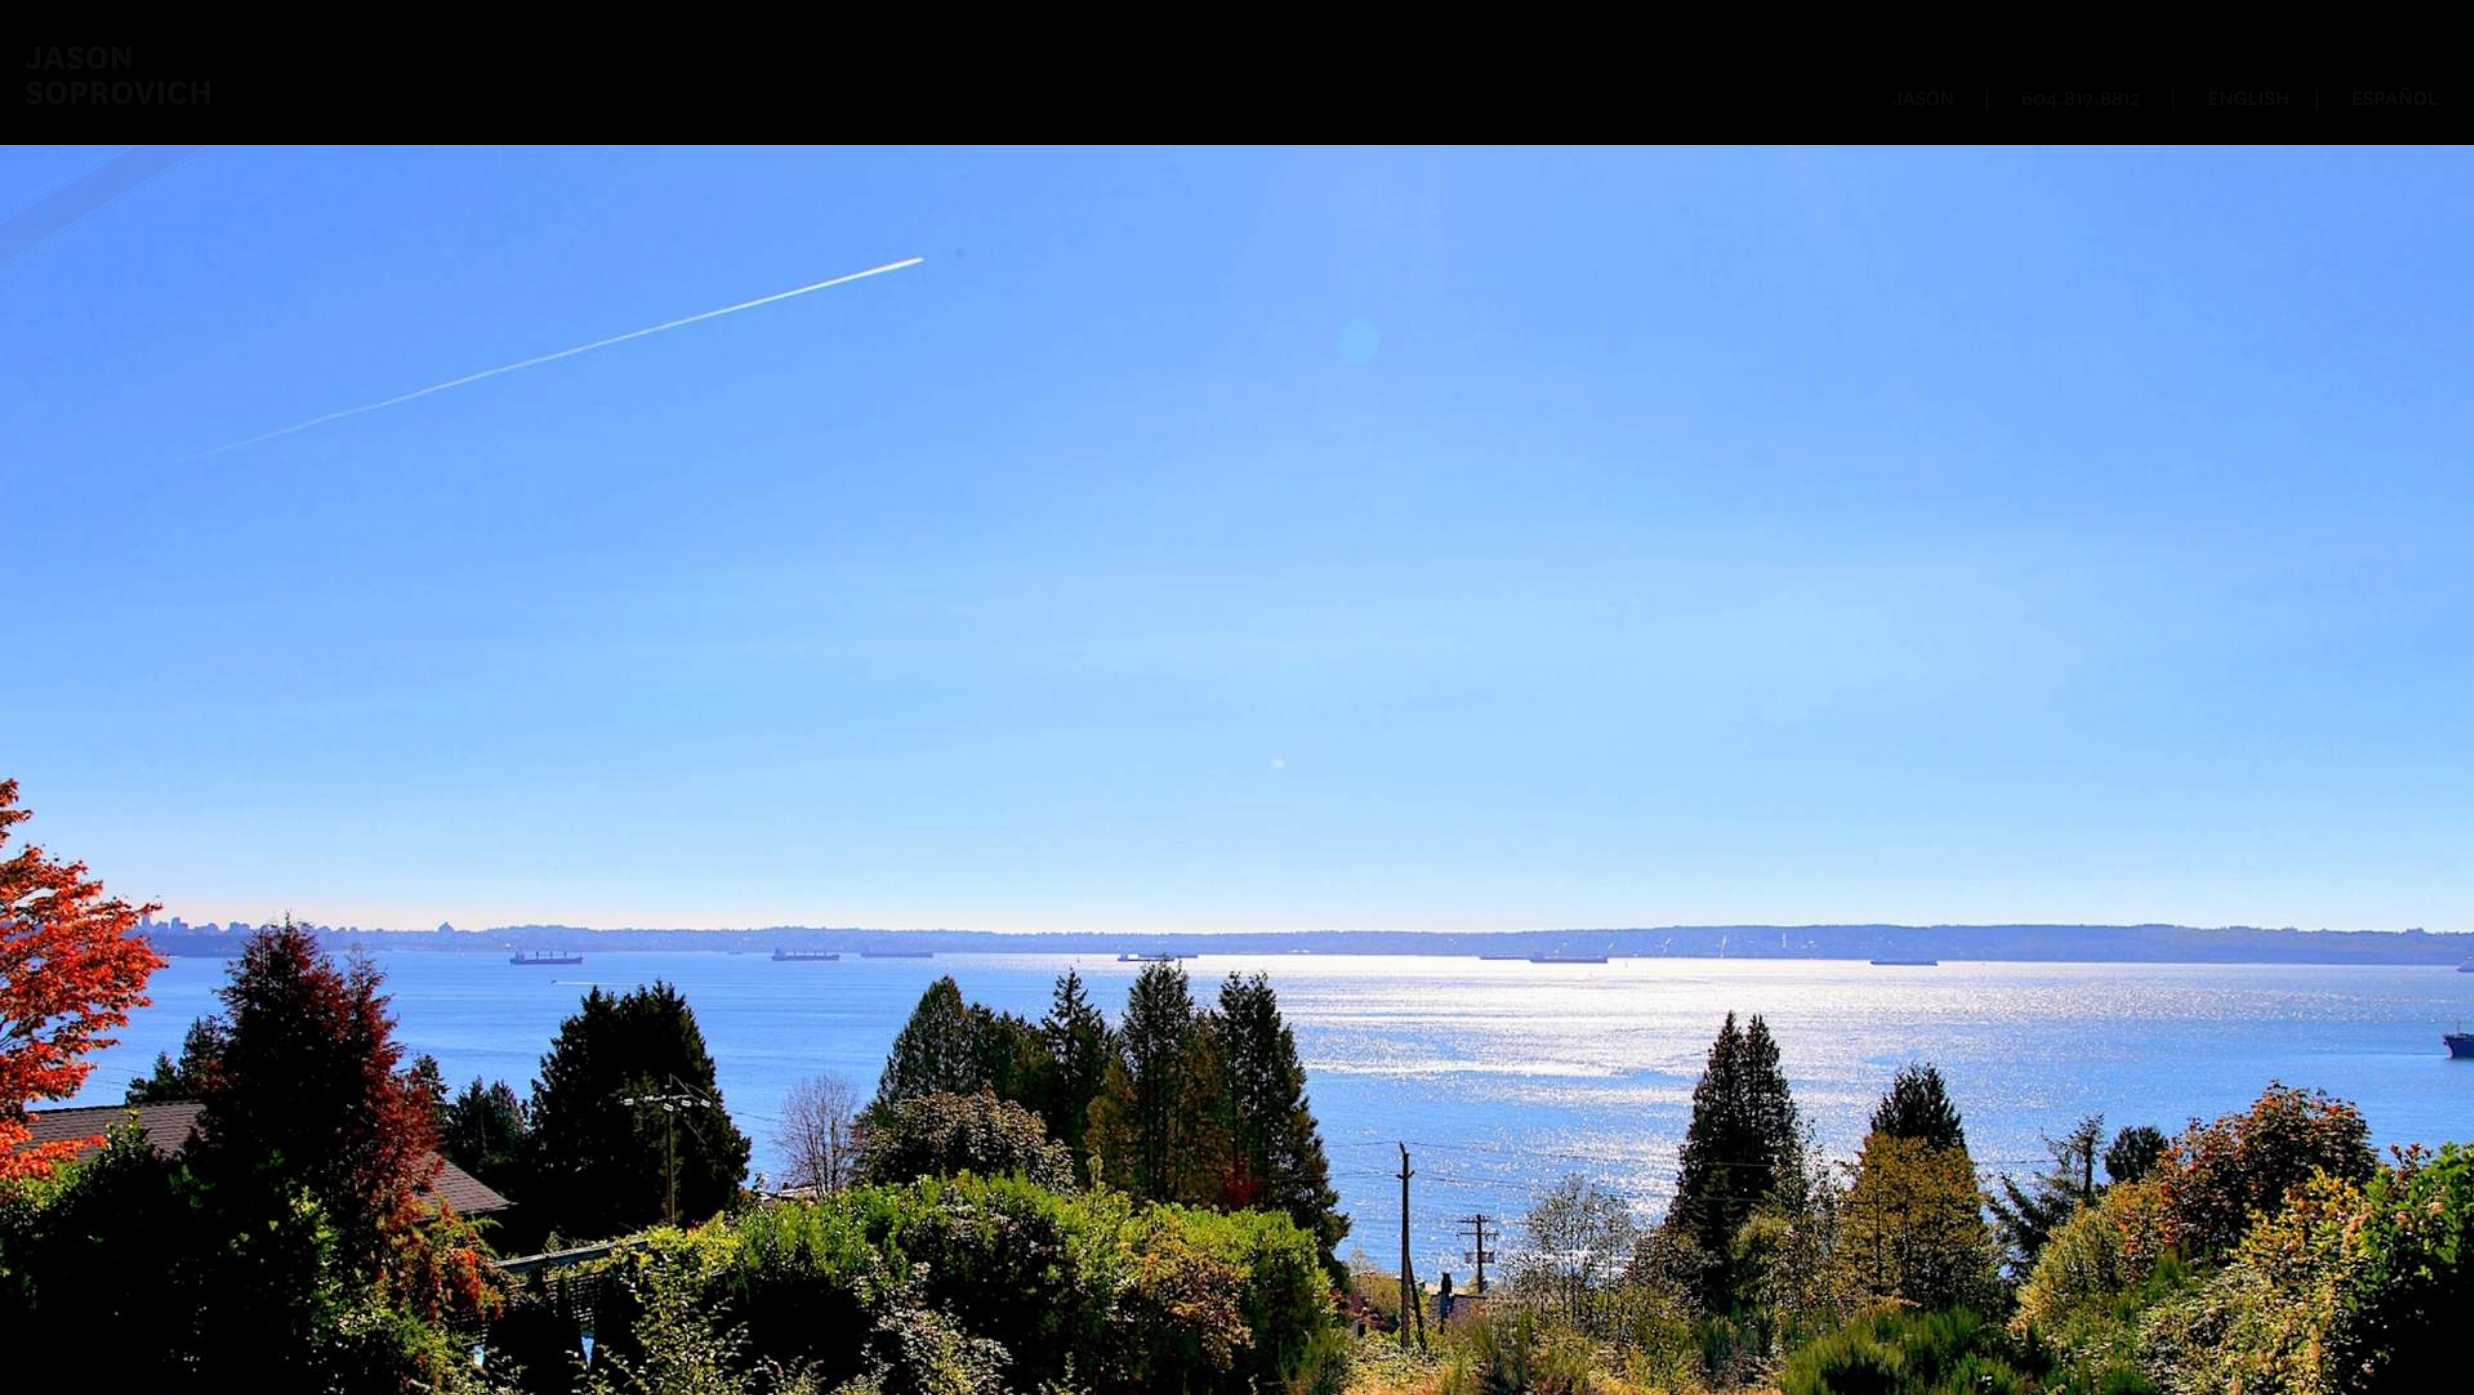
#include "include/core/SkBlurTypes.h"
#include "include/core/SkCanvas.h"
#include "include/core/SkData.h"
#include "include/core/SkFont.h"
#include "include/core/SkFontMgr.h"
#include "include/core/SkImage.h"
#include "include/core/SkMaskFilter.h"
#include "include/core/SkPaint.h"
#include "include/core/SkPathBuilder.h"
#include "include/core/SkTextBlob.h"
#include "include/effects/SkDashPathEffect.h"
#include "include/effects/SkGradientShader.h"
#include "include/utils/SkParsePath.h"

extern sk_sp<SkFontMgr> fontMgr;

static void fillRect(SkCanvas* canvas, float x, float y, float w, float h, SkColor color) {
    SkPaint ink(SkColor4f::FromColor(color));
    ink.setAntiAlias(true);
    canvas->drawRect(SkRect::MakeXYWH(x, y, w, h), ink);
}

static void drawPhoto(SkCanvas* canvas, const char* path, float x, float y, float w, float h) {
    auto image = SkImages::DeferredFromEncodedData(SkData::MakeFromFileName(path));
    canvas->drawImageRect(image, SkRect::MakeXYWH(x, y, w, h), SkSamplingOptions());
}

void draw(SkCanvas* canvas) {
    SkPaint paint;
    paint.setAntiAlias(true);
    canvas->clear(0xFF000000);
    drawPhoto(canvas, "assets/img1.png", 25, 46, 106, 23);
    drawPhoto(canvas, "assets/img2.png", 26, 81, 184, 23);
    drawPhoto(canvas, "assets/img3.png", 1893, 91, 60, 14);
    fillRect(canvas, 1986, 89, 2, 21, 0xFF0B0B0B);
    drawPhoto(canvas, "assets/img4.png", 2022, 92, 118, 16);
    fillRect(canvas, 2173, 89, 1, 21, 0xFF0B0B0B);
    drawPhoto(canvas, "assets/img5.png", 2209, 91, 79, 14);
    fillRect(canvas, 2316, 89, 2, 21, 0xFF0B0B0B);
    drawPhoto(canvas, "assets/img6.png", 2353, 87, 84, 18);
    drawPhoto(canvas, "assets/img7.png", 0, 145, 2474, 1250);
    drawPhoto(canvas, "assets/img8.png", 0, 145, 208, 130);
}
